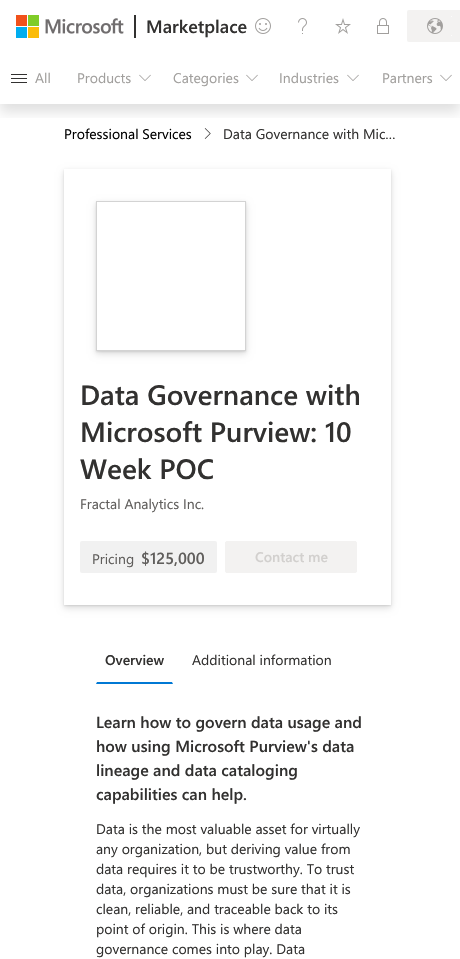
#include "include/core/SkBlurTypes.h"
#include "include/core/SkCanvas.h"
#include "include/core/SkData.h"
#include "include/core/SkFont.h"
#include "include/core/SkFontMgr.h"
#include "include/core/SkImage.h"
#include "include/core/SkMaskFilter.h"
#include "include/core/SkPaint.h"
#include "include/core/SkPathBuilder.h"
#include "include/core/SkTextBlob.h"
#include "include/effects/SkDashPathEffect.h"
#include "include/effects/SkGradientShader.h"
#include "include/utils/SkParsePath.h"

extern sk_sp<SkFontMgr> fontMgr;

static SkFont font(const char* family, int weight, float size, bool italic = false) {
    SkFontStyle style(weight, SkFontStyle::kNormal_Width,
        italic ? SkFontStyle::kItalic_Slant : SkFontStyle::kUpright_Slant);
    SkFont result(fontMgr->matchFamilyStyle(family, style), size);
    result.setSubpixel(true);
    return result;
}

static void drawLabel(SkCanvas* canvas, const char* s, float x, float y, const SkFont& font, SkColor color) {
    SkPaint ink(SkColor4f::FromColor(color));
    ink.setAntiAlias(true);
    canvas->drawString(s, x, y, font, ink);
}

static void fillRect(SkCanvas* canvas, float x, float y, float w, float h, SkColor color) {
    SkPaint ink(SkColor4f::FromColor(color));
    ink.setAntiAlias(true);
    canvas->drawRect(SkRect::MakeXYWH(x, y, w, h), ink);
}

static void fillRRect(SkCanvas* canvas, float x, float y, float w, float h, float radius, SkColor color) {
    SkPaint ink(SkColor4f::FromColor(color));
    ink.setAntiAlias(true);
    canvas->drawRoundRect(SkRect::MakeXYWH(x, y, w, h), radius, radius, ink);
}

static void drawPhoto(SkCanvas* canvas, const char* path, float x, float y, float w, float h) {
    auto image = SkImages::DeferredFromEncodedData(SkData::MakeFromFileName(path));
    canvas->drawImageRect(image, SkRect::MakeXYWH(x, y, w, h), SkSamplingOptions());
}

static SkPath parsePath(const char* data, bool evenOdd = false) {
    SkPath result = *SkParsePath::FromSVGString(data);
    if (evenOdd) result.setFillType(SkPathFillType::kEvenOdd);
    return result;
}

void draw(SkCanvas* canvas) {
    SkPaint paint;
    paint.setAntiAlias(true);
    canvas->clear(0xFFFFFFFF);
    drawPhoto(canvas, "assets/img9.png", 204, 128, 7, 11);
    canvas->save();
    canvas->clipRect(SkRect::MakeXYWH(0, 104, 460, 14));
    paint.setColor(0x1F000000);
    paint.setMaskFilter(SkMaskFilter::MakeBlur(kNormal_SkBlurStyle, 6));
    canvas->drawRect(SkRect::MakeXYWH(0, 8, 460, 104), paint);
    paint.setMaskFilter(nullptr);
    canvas->restore();
    drawPhoto(canvas, "assets/img1.png", 16, 15, 108, 23);
    fillRect(canvas, 134, 15, 2, 23, 0xFF323130);
    SkFont font1 = font("Segoe UI", 600, 18);
    drawLabel(canvas, "Marketplace", 146, 33, font1, 0xFF323130);
    drawPhoto(canvas, "assets/img2.png", 255, 18, 16, 16);
    drawPhoto(canvas, "assets/img3.png", 298, 18, 9, 16);
    drawPhoto(canvas, "assets/img4.png", 335, 18, 16, 16);
    drawPhoto(canvas, "assets/img5.png", 377, 18, 12, 16);
    fillRRect(canvas, 407, 10, 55, 32, 2, 0xFFF3F2F1);
    drawPhoto(canvas, "assets/img6.png", 427, 18, 16, 16);
    fillRect(canvas, 451, 16, 1, 1, 0xFFFCFBFB);
    fillRect(canvas, 451, 35, 1, 1, 0xFFFCFBFB);
    drawPhoto(canvas, "assets/img7.png", 11, 74, 16, 9);
    SkFont font2 = font("Segoe UI", 400, 14);
    drawLabel(canvas, "All", 35, 83, font2, 0xFFA19F9D);
    drawLabel(canvas, "Products", 77, 83, font2, 0xFFA19F9D);
    drawPhoto(canvas, "assets/img8.png", 139, 74, 12, 7);
    drawLabel(canvas, "Categories", 173, 83, font2, 0xFFA19F9D);
    drawPhoto(canvas, "assets/img8.png", 246, 74, 12, 7);
    drawLabel(canvas, "Industries", 279, 83, font2, 0xFFA19F9D);
    drawPhoto(canvas, "assets/img8.png", 347, 74, 12, 7);
    drawLabel(canvas, "Partners", 382, 83, font2, 0xFFA19F9D);
    drawPhoto(canvas, "assets/img8.png", 440, 74, 12, 7);
    drawLabel(canvas, "Professional Services", 64, 139, font2, 0xFF000000);
    drawLabel(canvas, "Data Governance with Mic…", 223, 139, font2, 0xFF323130);
    canvas->save();
    canvas->clipPath(parsePath("M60 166H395V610H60ZM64 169H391V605H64Z", true), true);
    paint.setColor(0x1C000000);
    paint.setMaskFilter(SkMaskFilter::MakeBlur(kNormal_SkBlurStyle, 1));
    canvas->drawRect(SkRect::MakeXYWH(64, 170, 327, 436), paint);
    paint.setMaskFilter(nullptr);
    canvas->restore();
    canvas->save();
    canvas->clipPath(parsePath("M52 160H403V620H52ZM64 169H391V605H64Z", true), true);
    paint.setColor(0x21000000);
    paint.setMaskFilter(SkMaskFilter::MakeBlur(kNormal_SkBlurStyle, 3.5f));
    canvas->drawRect(SkRect::MakeXYWH(64, 172, 327, 436), paint);
    paint.setMaskFilter(nullptr);
    canvas->restore();
    canvas->save();
    canvas->clipPath(parsePath("M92 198H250V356H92ZM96 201H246V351H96Z", true), true);
    paint.setColor(0x1C000000);
    paint.setMaskFilter(SkMaskFilter::MakeBlur(kNormal_SkBlurStyle, 1));
    canvas->drawRect(SkRect::MakeXYWH(96, 202, 150, 150), paint);
    paint.setMaskFilter(nullptr);
    canvas->restore();
    canvas->save();
    canvas->clipPath(parsePath("M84 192H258V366H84ZM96 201H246V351H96Z", true), true);
    paint.setColor(0x21000000);
    paint.setMaskFilter(SkMaskFilter::MakeBlur(kNormal_SkBlurStyle, 3.5f));
    canvas->drawRect(SkRect::MakeXYWH(96, 204, 150, 150), paint);
    paint.setMaskFilter(nullptr);
    canvas->restore();
    paint.setStroke(true);
    paint.setStrokeWidth(1);
    paint.setColor(0xFFD3D3D3);
    canvas->drawRect(SkRect::MakeXYWH(96.5f, 201.5f, 149, 149), paint);
    SkFont font3 = font("Segoe UI", 600, 28);
    drawLabel(canvas, "Data Governance with", 80, 405, font3, 0xFF323130);
    drawLabel(canvas, "Microsoft Purview: 10", 80, 442, font3, 0xFF323130);
    drawLabel(canvas, "Week POC", 80, 479, font3, 0xFF323130);
    drawLabel(canvas, "Fractal Analytics Inc.", 80, 509, font2, 0xFF605E5C);
    fillRRect(canvas, 80, 541, 137, 32, 2, 0xFFF1F1F1);
    drawLabel(canvas, "Pricing", 92, 564, font2, 0xFF605E5C);
    SkFont font4 = font("Segoe UI", 600, 16);
    drawLabel(canvas, "$125,000", 141, 564, font4, 0xFF605E5C);
    paint.setStroke(false);
    paint.setColor(0xFFF3F2F1);
    canvas->drawRoundRect(SkRect::MakeXYWH(225.5f, 541.5f, 131, 31), 1.5f, 1.5f, paint);
    paint.setStroke(true);
    canvas->drawRoundRect(SkRect::MakeXYWH(225.5f, 541.5f, 131, 31), 1.5f, 1.5f, paint);
    SkFont font5 = font("Segoe UI", 600, 14);
    drawLabel(canvas, "Contact me", 255, 562, font5, 0xFFD2D0CE);
    paint.setStroke(false);
    paint.setColor(0xFF0078D4);
    canvas->drawPath(parsePath("M173 684H96L97 682H172Z"), paint);
    drawLabel(canvas, "Overview", 105, 665, font5, 0xFF323130);
    drawLabel(canvas, "Additional information", 192, 665, font2, 0xFF323130);
    drawLabel(canvas, "Learn how to govern data usage and", 96, 728, font4, 0xFF323130);
    drawLabel(canvas, "how using Microsoft Purview's data", 96, 752, font4, 0xFF323130);
    drawLabel(canvas, "lineage and data cataloging", 96, 776, font4, 0xFF323130);
    drawLabel(canvas, "capabilities can help.", 96, 800, font4, 0xFF323130);
    drawLabel(canvas, "Data is the most valuable asset for virtually", 96, 834, font2, 0xFF323130);
    drawLabel(canvas, "any organization, but deriving value from", 96, 854, font2, 0xFF323130);
    drawLabel(canvas, "data requires it to be trustworthy. To trust", 96, 874, font2, 0xFF323130);
    drawLabel(canvas, "data, organizations must be sure that it is", 96, 894, font2, 0xFF323130);
    drawLabel(canvas, "clean, reliable, and traceable back to its", 96, 914, font2, 0xFF323130);
    drawLabel(canvas, "point of origin. This is where data", 96, 934, font2, 0xFF323130);
    drawLabel(canvas, "governance comes into play. Data", 96, 954, font2, 0xFF323130);
}
